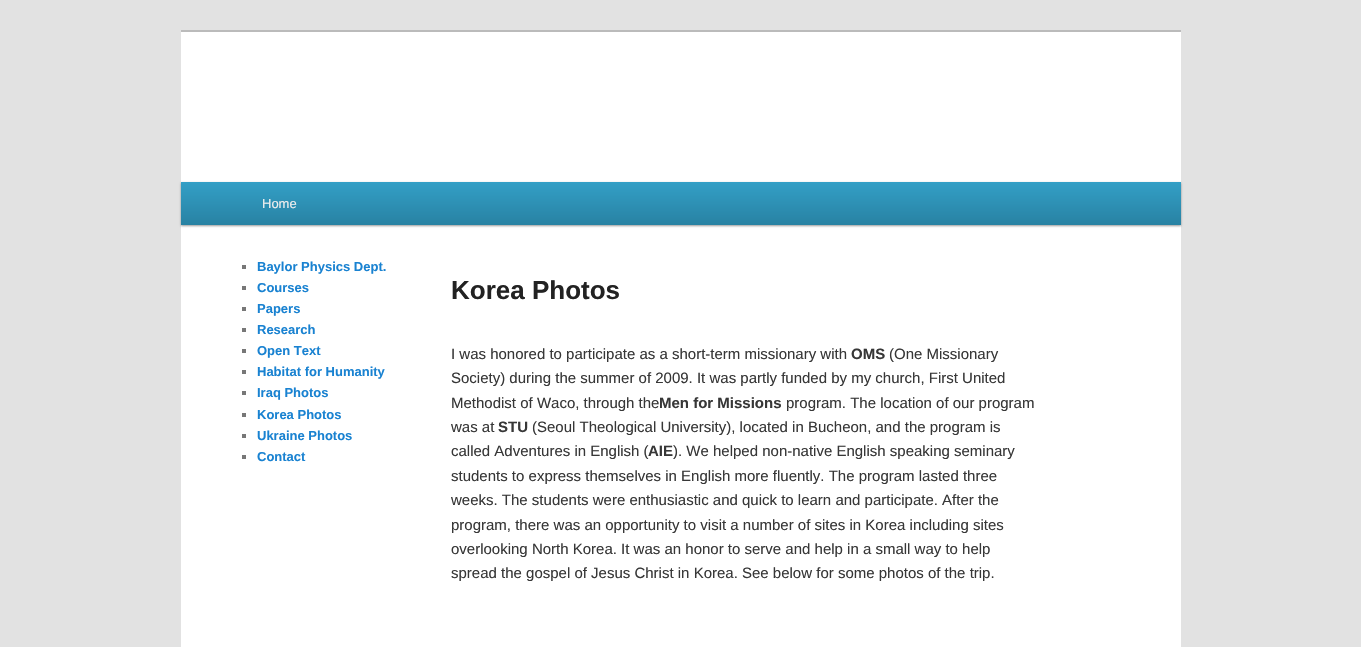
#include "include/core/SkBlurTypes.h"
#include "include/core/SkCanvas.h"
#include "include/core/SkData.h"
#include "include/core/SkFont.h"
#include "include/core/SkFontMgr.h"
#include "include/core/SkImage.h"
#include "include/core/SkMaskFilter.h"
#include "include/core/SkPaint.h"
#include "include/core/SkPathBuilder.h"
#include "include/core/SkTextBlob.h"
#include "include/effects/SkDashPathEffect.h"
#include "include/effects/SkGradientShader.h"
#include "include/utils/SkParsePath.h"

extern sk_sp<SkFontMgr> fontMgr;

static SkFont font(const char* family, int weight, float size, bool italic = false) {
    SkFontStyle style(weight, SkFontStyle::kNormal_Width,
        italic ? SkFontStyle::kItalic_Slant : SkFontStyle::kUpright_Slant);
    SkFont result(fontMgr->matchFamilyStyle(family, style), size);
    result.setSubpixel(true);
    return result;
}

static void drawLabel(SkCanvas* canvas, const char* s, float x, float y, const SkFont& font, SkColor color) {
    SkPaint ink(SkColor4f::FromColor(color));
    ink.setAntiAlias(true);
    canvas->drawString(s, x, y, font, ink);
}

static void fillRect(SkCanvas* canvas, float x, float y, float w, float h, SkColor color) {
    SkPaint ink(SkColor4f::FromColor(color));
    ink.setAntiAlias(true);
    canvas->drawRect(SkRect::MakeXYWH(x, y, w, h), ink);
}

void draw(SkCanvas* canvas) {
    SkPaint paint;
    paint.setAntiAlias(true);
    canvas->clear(0xFFE2E2E2);
    fillRect(canvas, 181, 32, 1000, 615, 0xFFFFFFFF);
    fillRect(canvas, 181, 30, 1000, 2, 0xFFBBBBBB);
    paint.setColor(0x66000000);
    paint.setMaskFilter(SkMaskFilter::MakeBlur(kNormal_SkBlurStyle, 1));
    canvas->drawRect(SkRect::MakeXYWH(181, 183, 1000, 43), paint);
    paint.setMaskFilter(nullptr);
    {
        const SkColor colors[] = {0xFF339FC6, 0xFF2882A3};
        const float stops[] = {0, 1};
        const SkPoint ends[] = {{681, 182}, {681, 225}};
        paint.setShader(SkGradientShader::MakeLinear(ends, colors, stops, 2, SkTileMode::kClamp));
        paint.setAlpha(255);
    }
    canvas->drawRect(SkRect::MakeXYWH(181, 182, 1000, 43), paint);
    SkFont font1 = font("Liberation Sans", 400, 13);
    drawLabel(canvas, "Home", 262, 208, font1, 0xFFEEEEEE);
    fillRect(canvas, 242, 265, 4, 4, 0xFF777777);
    SkFont font2 = font("Liberation Sans", 700, 13);
    drawLabel(canvas, "Baylor Physics Dept.", 257, 271, font2, 0xFF1982D1);
    fillRect(canvas, 242, 286, 4, 4, 0xFF777777);
    drawLabel(canvas, "Courses", 257, 292, font2, 0xFF1982D1);
    fillRect(canvas, 242, 307, 4, 4, 0xFF777777);
    drawLabel(canvas, "Papers", 257, 313, font2, 0xFF1982D1);
    fillRect(canvas, 242, 328, 4, 4, 0xFF777777);
    drawLabel(canvas, "Research", 257, 334, font2, 0xFF1982D1);
    fillRect(canvas, 242, 349, 4, 4, 0xFF777777);
    drawLabel(canvas, "Open Text", 257, 355, font2, 0xFF1982D1);
    fillRect(canvas, 242, 370, 4, 4, 0xFF777777);
    drawLabel(canvas, "Habitat for Humanity", 257, 376, font2, 0xFF1982D1);
    fillRect(canvas, 242, 391, 4, 4, 0xFF777777);
    drawLabel(canvas, "Iraq Photos", 257, 397, font2, 0xFF1982D1);
    fillRect(canvas, 242, 413, 4, 4, 0xFF777777);
    drawLabel(canvas, "Korea Photos", 257, 419, font2, 0xFF1982D1);
    fillRect(canvas, 242, 434, 4, 4, 0xFF777777);
    drawLabel(canvas, "Ukraine Photos", 257, 440, font2, 0xFF1982D1);
    fillRect(canvas, 242, 455, 4, 4, 0xFF777777);
    drawLabel(canvas, "Contact", 257, 461, font2, 0xFF1982D1);
    SkFont font3 = font("Liberation Sans", 700, 26);
    drawLabel(canvas, "Korea Photos", 451, 299, font3, 0xFF222222);
    SkFont font4 = font("Liberation Sans", 400, 15);
    drawLabel(canvas, "I was honored to participate as a short-term missionary with", 451, 359, font4, 0xFF373737);
    SkFont font5 = font("Liberation Sans", 700, 15);
    drawLabel(canvas, "OMS", 851, 359, font5, 0xFF373737);
    drawLabel(canvas, "(One Missionary", 889, 359, font4, 0xFF373737);
    drawLabel(canvas, "Society) during the summer of 2009. It was partly funded by my church, First United", 451, 383, font4, 0xFF373737);
    drawLabel(canvas, "Methodist of Waco, through the", 451, 408, font4, 0xFF373737);
    drawLabel(canvas, "Men for Missions", 659, 408, font5, 0xFF373737);
    drawLabel(canvas, "program. The location of our program", 786, 408, font4, 0xFF373737);
    drawLabel(canvas, "was at", 451, 432, font4, 0xFF373737);
    drawLabel(canvas, "STU", 498, 432, font5, 0xFF373737);
    drawLabel(canvas, "(Seoul Theological University), located in Bucheon, and the program is", 532, 432, font4, 0xFF373737);
    drawLabel(canvas, "called Adventures in English (", 451, 456, font4, 0xFF373737);
    drawLabel(canvas, "AIE", 648, 456, font5, 0xFF373737);
    drawLabel(canvas, "). We helped non-native English speaking seminary", 673, 456, font4, 0xFF373737);
    drawLabel(canvas, "students to express themselves in English more fluently. The program lasted three", 451, 481, font4, 0xFF373737);
    drawLabel(canvas, "weeks. The students were enthusiastic and quick to learn and participate. After the", 451, 505, font4, 0xFF373737);
    drawLabel(canvas, "program, there was an opportunity to visit a number of sites in Korea including sites", 451, 530, font4, 0xFF373737);
    drawLabel(canvas, "overlooking North Korea. It was an honor to serve and help in a small way to help", 451, 554, font4, 0xFF373737);
    drawLabel(canvas, "spread the gospel of Jesus Christ in Korea. See below for some photos of the trip.", 451, 578, font4, 0xFF373737);
}
